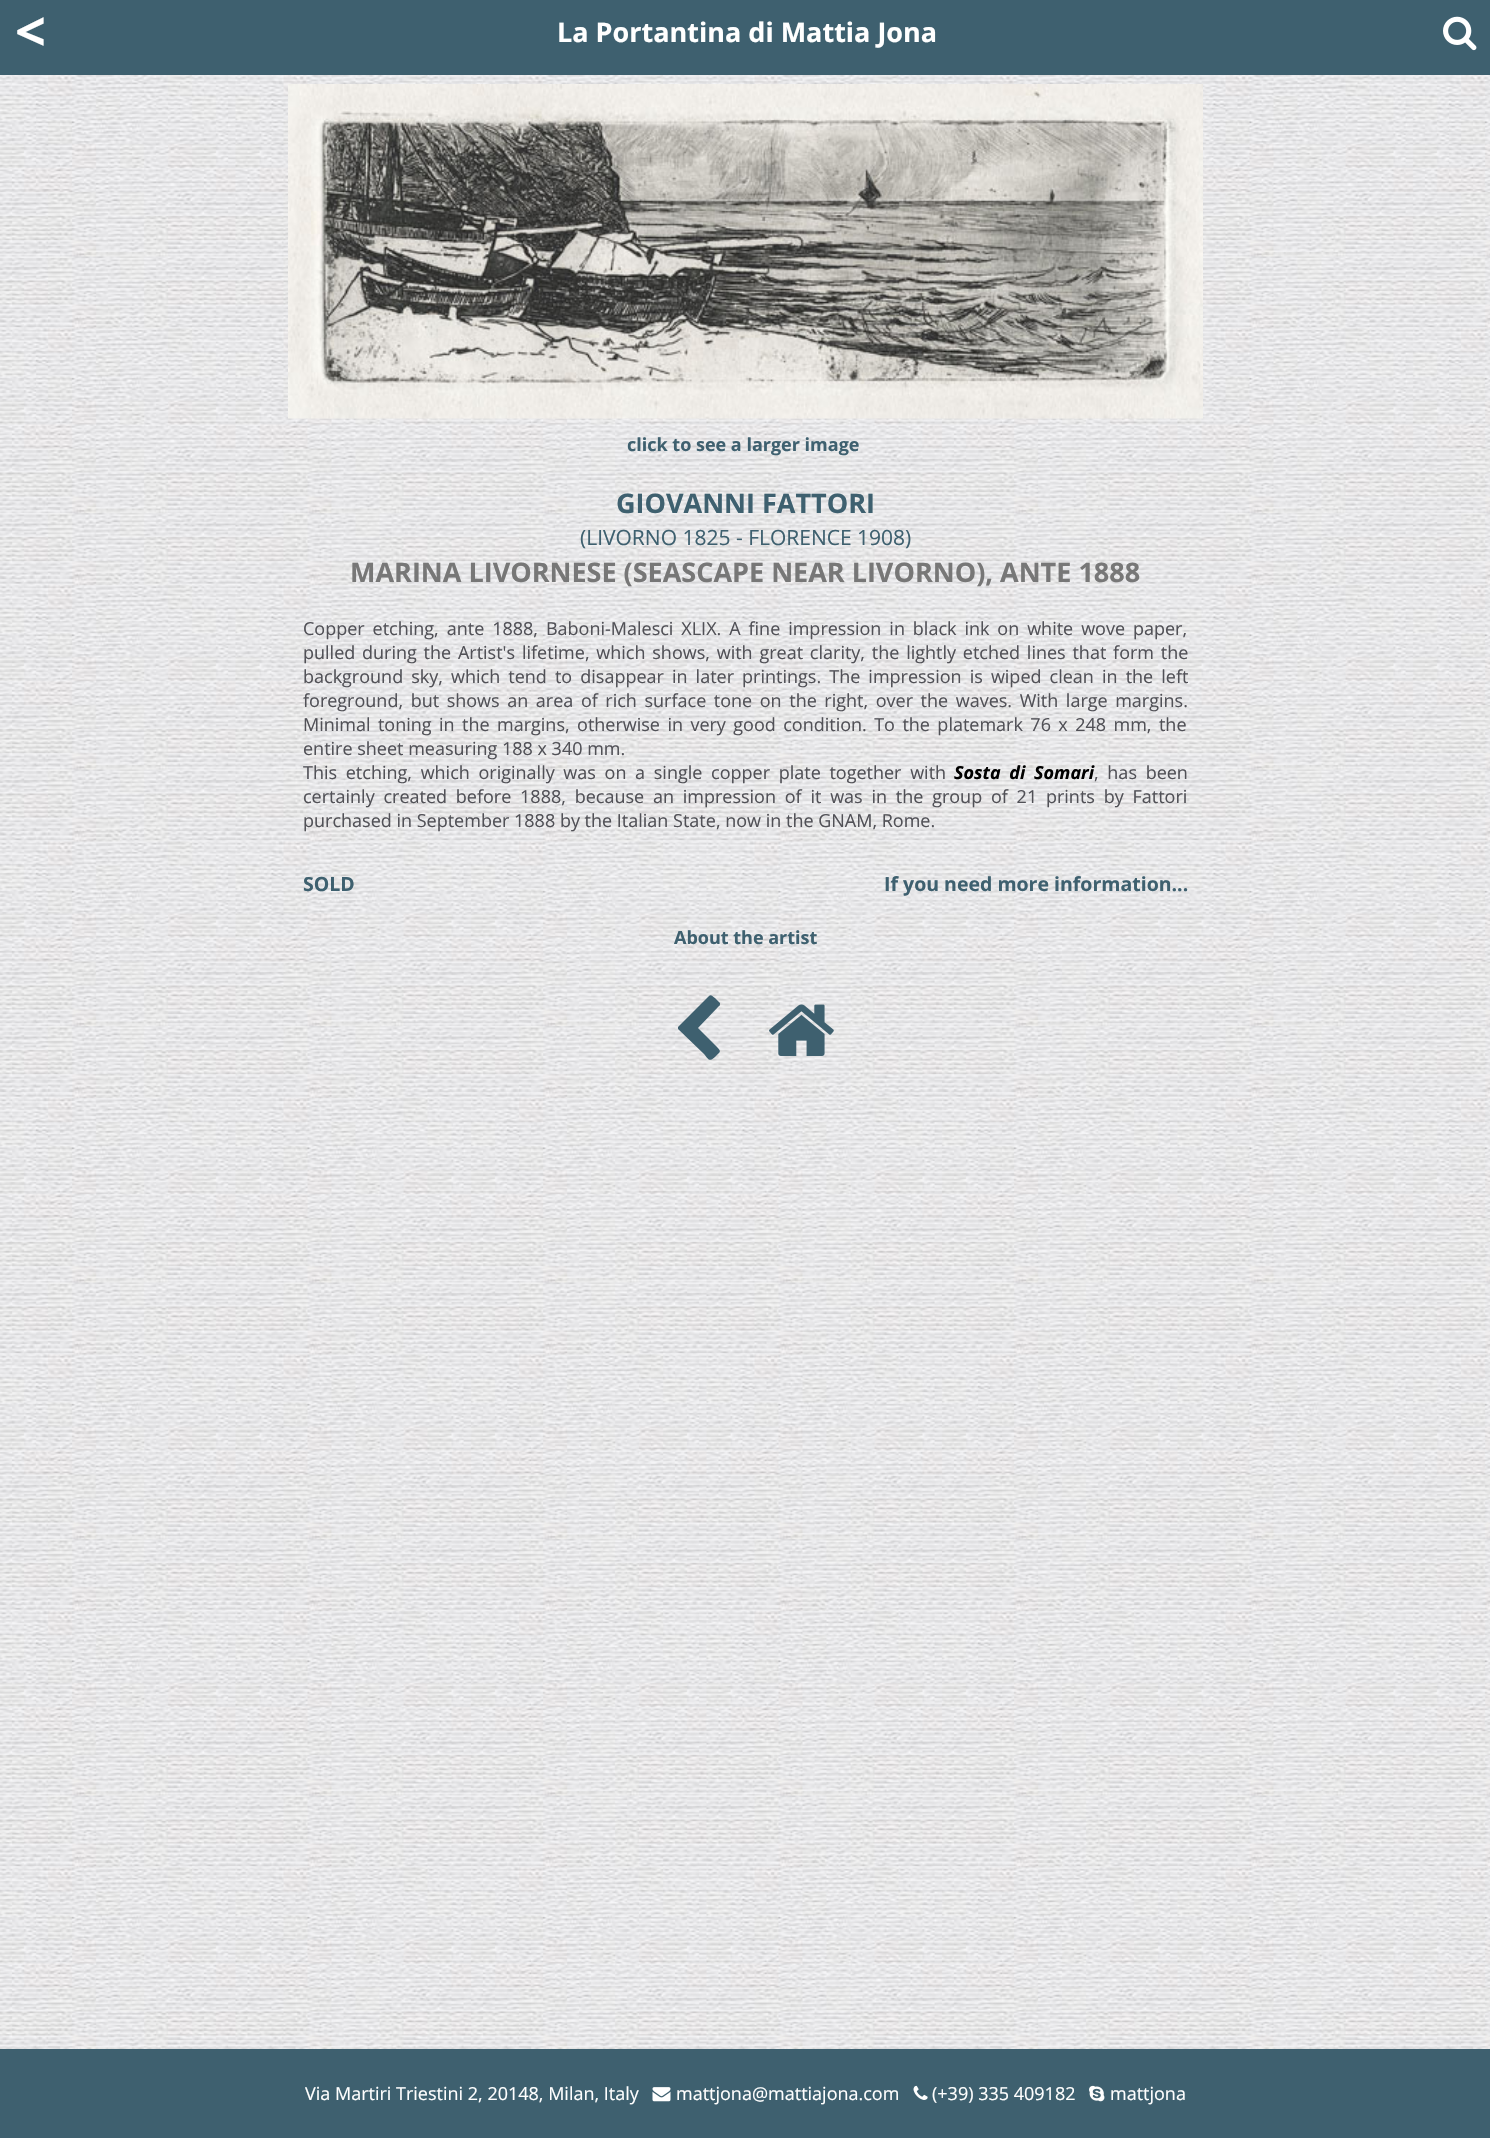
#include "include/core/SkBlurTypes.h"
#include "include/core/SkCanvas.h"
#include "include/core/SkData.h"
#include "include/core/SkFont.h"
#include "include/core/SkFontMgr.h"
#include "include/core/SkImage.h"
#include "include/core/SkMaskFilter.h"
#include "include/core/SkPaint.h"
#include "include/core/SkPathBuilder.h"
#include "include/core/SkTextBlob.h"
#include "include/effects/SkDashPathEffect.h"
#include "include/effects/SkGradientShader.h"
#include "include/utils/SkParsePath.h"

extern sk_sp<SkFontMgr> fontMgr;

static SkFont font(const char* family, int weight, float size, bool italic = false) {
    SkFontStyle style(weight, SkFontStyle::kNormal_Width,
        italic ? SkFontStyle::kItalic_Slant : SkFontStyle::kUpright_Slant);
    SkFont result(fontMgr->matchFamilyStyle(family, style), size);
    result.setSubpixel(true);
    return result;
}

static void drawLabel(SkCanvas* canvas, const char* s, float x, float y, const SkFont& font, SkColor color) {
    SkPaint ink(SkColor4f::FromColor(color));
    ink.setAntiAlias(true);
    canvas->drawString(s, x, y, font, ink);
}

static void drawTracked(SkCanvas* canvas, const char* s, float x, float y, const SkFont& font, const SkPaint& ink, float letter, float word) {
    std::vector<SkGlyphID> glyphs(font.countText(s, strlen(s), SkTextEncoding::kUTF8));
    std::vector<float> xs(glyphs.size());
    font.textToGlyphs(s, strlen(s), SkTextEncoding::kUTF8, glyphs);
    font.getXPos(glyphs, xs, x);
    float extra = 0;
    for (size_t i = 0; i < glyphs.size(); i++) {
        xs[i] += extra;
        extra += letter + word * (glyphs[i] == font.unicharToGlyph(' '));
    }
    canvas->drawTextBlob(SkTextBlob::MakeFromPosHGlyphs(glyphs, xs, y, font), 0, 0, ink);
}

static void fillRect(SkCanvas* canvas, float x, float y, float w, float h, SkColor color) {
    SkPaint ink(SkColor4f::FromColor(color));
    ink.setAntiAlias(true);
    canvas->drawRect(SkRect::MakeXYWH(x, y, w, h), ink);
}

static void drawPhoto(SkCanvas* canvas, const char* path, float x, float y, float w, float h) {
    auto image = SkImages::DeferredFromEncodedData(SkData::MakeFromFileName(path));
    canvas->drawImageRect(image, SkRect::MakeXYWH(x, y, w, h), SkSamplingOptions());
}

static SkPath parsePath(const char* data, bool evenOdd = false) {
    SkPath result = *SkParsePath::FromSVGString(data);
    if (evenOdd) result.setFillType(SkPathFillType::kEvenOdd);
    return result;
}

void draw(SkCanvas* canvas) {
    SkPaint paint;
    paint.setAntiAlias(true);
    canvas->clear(0xFFFFFFFF);
    drawPhoto(canvas, "assets/img1.png", 0, 75, 1490, 1974);
    fillRect(canvas, 0, 0, 1490, 75, 0xFF3E606F);
    SkFont font1 = font("Open Sans", 700, 54);
    drawLabel(canvas, "<", 15, 51, font1, 0xFFFFFFFF);
    SkFont font2 = font("Open Sans", 700, 27);
    drawLabel(canvas, "La Portantina di Mattia Jona", 557, 42, font2, 0xFFFFFFFF);
    drawPhoto(canvas, "assets/img2.png", 1443, 16, 34, 35);
    drawPhoto(canvas, "assets/img3.png", 288, 84, 915, 335);
    SkFont font3 = font("Open Sans", 700, 18);
    drawLabel(canvas, "click to see a larger image", 627, 451, font3, 0xFF3E606F);
    drawLabel(canvas, "GIOVANNI FATTORI", 616, 513, font2, 0xFF3E606F);
    SkFont font4 = font("Open Sans", 400, 21);
    drawLabel(canvas, "(LIVORNO 1825 - FLORENCE 1908)", 580, 545, font4, 0xFF3E606F);
    drawLabel(canvas, "MARINA LIVORNESE (SEASCAPE NEAR LIVORNO), ANTE 1888", 350, 582, font2, 0xFF777777);
    SkFont font5 = font("Open Sans", 400, 18);
    paint.setColor(0xFF515157);
    drawTracked(canvas, "Copper etching, ante 1888, Baboni-Malesci XLIX. A fine impression in black ink on white wove paper,", 303, 635, font5, paint, 0, 3.25f);
    drawTracked(canvas, "pulled during the Artist's lifetime, which shows, with great clarity, the lightly etched lines that form the", 303, 659, font5, paint, 0, 2.1f);
    drawTracked(canvas, "background sky, which tend to disappear in later printings. The impression is wiped clean in the left", 303, 683, font5, paint, 0, 3.4f);
    drawTracked(canvas, "foreground, but shows an area of rich surface tone on the right, over the waves. With large margins.", 303, 707, font5, paint, 0, 2.9f);
    drawTracked(canvas, "Minimal toning in the margins, otherwise in very good condition. To the platemark 76 x 248 mm, the", 303, 731, font5, paint, 0, 2.75f);
    drawLabel(canvas, "entire sheet measuring 188 x 340 mm.", 303, 755, font5, 0xFF515157);
    drawTracked(canvas, "This etching, which originally was on a single copper plate together with", 303, 779, font5, paint, 0, 4);
    SkFont font6 = font("Open Sans", 700, 18, true);
    paint.setColor(0xFF000000);
    drawTracked(canvas, "Sosta di Somari", 954, 779, font6, paint, 0, 4);
    paint.setColor(0xFF515157);
    drawTracked(canvas, ", has been", 1094, 779, font5, paint, 0, 4);
    drawTracked(canvas, "certainly created before 1888, because an impression of it was in the group of 21 prints by Fattori", 303, 803, font5, paint, 0, 4.1f);
    drawLabel(canvas, "purchased in September 1888 by the Italian State, now in the GNAM, Rome.", 303, 827, font5, 0xFF515157);
    SkFont font7 = font("Open Sans", 700, 19.5f);
    drawLabel(canvas, "SOLD", 303, 891, font7, 0xFF3E606F);
    drawLabel(canvas, "If you need more information...", 884, 891, font7, 0xFF3E606F);
    drawLabel(canvas, "About the artist", 674, 944, font3, 0xFF3E606F);
    paint.setColor(0xFF3E606F);
    canvas->drawPath(parsePath("M719 1006L698 1028L715 1045C722 1052 721 1051 715 1057C709 1062 709 1060 704 1054L678 1029V1027L709 996C711 994 713 997 715 998L720 1003C720 1004 720 1006 719 1006Z"), paint);
    drawPhoto(canvas, "assets/img4.png", 769, 1004, 65, 52);
    fillRect(canvas, 0, 2049, 1490, 89, 0xFF3E606F);
    drawLabel(canvas, "Via Martiri Triestini 2, 20148, Milan, Italy", 305, 2100, font5, 0xFFFFFFFF);
    drawPhoto(canvas, "assets/img5.png", 652, 2087, 19, 15);
    drawLabel(canvas, "mattjona@mattiajona.com", 676, 2100, font5, 0xFFFFFFFF);
    drawPhoto(canvas, "assets/img6.png", 913, 2085, 15, 15);
    drawLabel(canvas, "(+39) 335 409182", 932, 2100, font5, 0xFFFFFFFF);
    drawPhoto(canvas, "assets/img7.png", 1089, 2085, 16, 17);
    drawLabel(canvas, "mattjona", 1110, 2100, font5, 0xFFFFFFFF);
}
